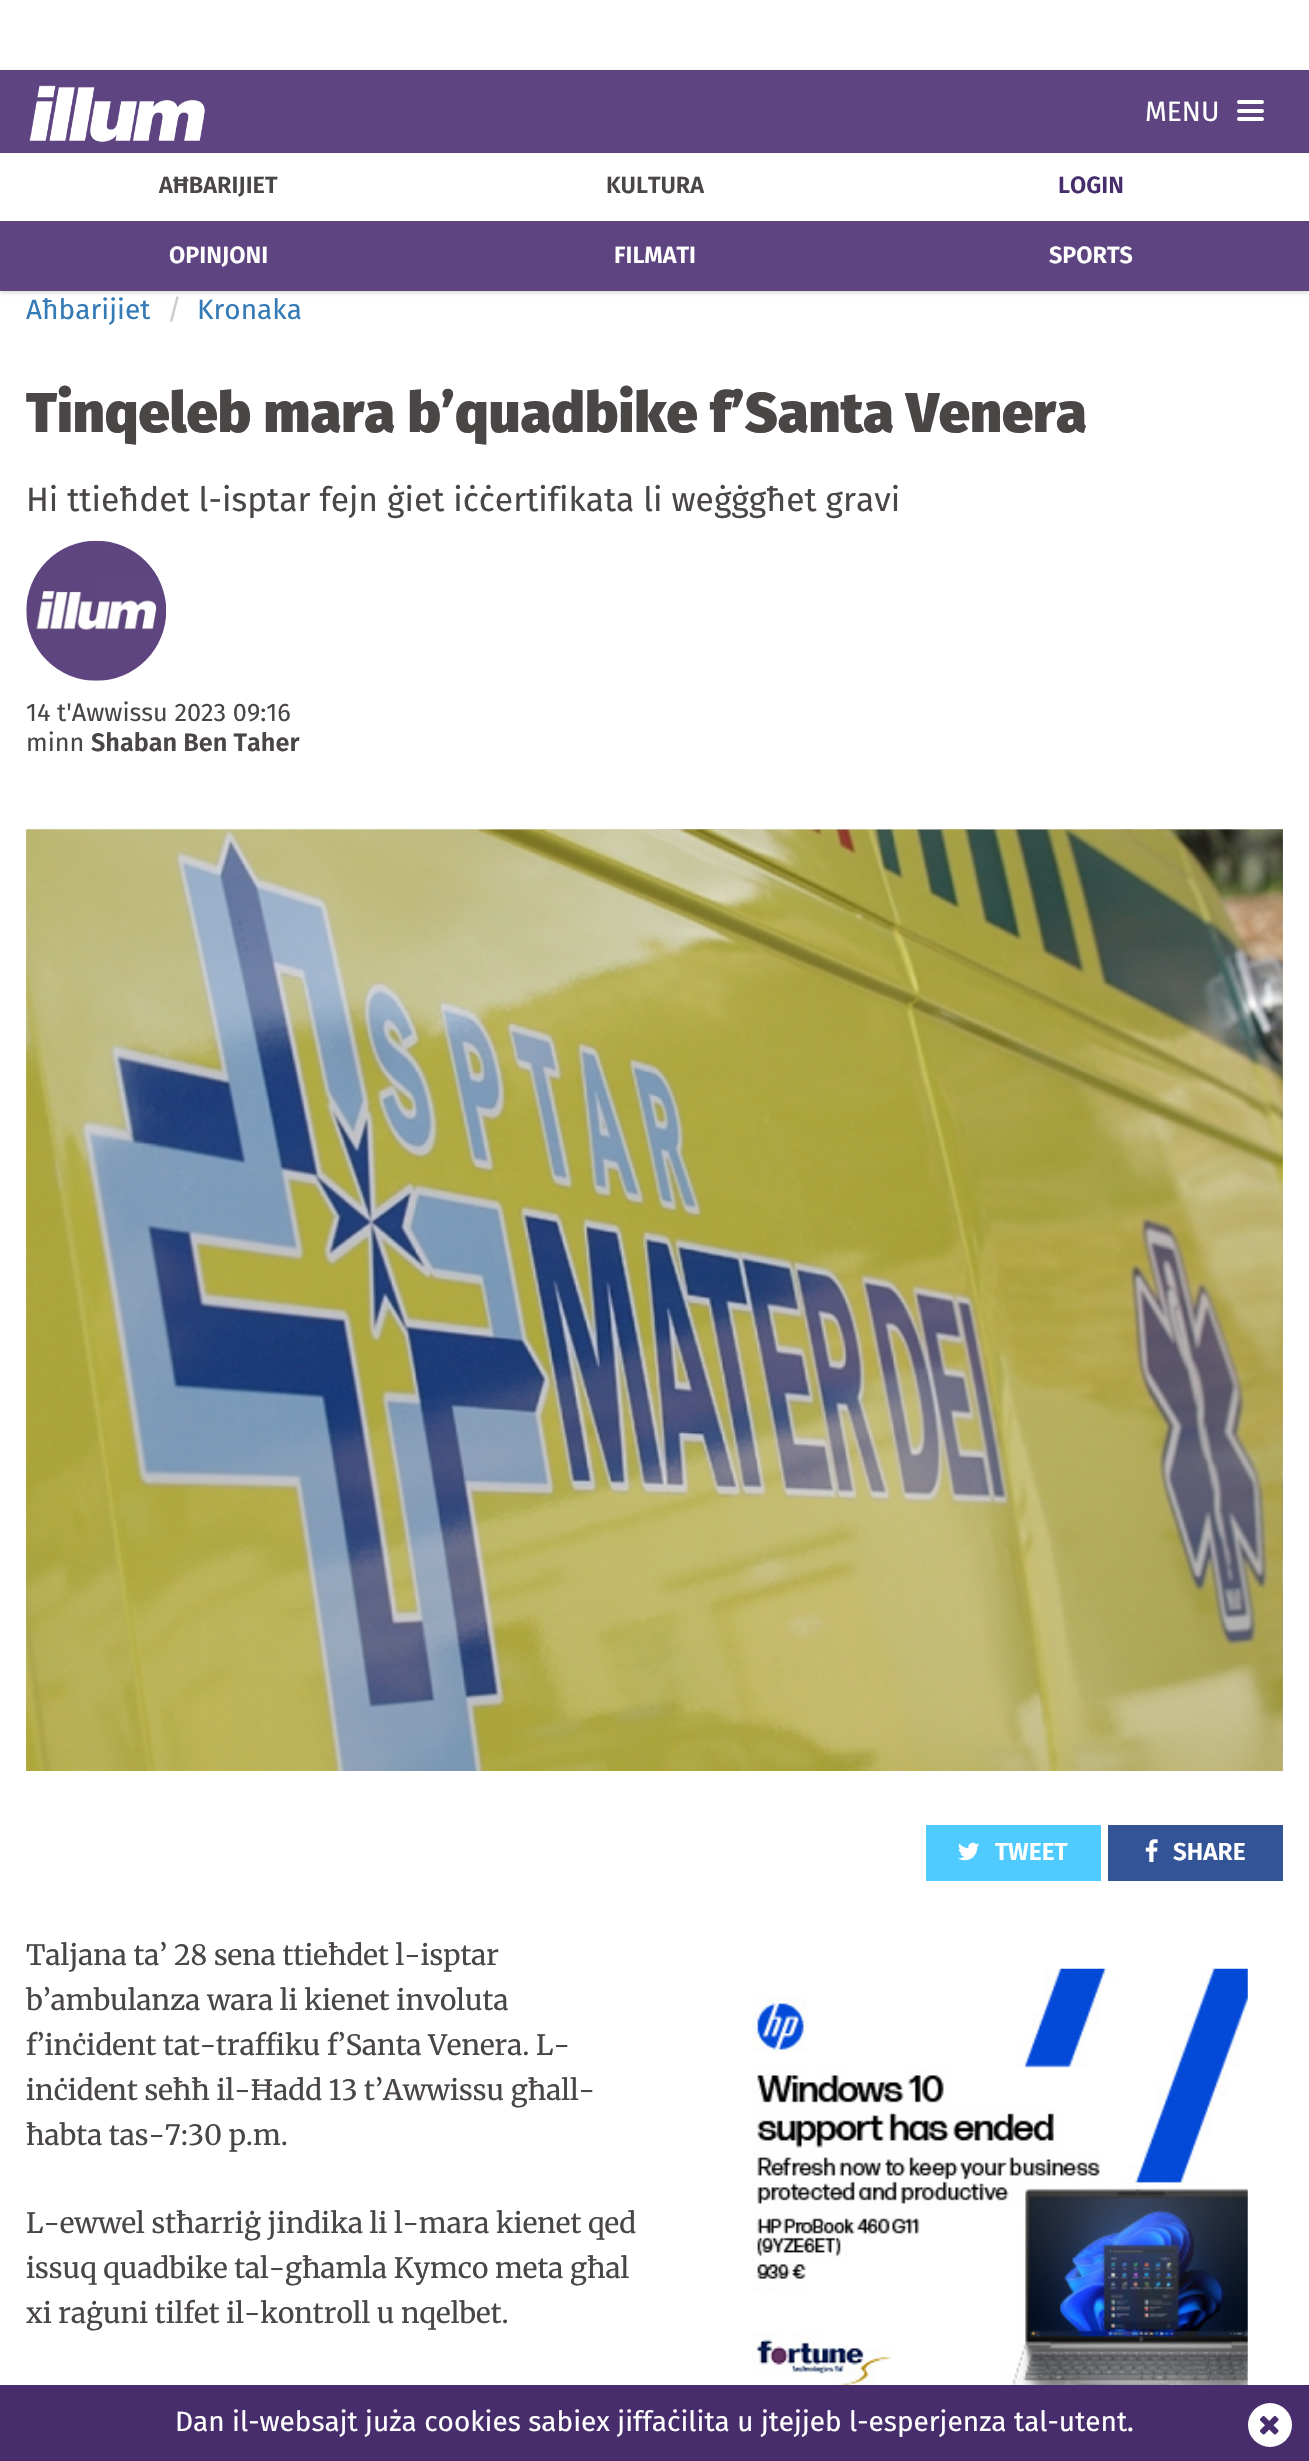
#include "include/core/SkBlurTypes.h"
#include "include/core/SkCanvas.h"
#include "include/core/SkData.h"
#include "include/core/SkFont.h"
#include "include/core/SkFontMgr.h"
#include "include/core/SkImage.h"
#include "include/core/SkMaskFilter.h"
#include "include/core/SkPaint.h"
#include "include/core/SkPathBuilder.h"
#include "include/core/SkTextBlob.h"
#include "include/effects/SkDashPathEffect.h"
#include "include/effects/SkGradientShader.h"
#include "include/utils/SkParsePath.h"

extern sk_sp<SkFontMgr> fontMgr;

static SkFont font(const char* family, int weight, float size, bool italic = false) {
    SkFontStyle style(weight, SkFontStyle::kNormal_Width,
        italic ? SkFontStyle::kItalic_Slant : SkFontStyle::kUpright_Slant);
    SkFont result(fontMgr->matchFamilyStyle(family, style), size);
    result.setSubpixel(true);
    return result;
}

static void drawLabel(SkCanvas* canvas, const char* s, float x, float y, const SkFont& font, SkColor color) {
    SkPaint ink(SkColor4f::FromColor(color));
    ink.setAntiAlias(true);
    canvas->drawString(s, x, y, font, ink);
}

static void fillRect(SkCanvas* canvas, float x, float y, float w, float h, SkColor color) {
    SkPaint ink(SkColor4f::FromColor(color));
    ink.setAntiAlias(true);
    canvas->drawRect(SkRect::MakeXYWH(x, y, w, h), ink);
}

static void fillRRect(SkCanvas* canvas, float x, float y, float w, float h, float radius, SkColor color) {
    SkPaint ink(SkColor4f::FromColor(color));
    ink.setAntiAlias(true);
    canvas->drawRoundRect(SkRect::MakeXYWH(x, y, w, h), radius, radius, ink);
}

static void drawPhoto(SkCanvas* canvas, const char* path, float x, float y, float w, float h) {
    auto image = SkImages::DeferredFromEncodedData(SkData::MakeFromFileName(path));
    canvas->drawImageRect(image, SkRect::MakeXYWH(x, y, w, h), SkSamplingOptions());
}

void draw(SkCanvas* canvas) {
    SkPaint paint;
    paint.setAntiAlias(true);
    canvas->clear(0xFFFFFFFF);
    paint.setColor(0x33000000);
    paint.setMaskFilter(SkMaskFilter::MakeBlur(kNormal_SkBlurStyle, 2.5f));
    canvas->drawRect(SkRect::MakeXYWH(0, 72, 1309, 220), paint);
    paint.setMaskFilter(nullptr);
    fillRect(canvas, 0, 70, 1309, 221, 0xFF5E4581);
    drawPhoto(canvas, "assets/img1.png", 29, 85, 176, 57);
    SkFont font1 = font("Fira Sans", 400, 28);
    drawLabel(canvas, "MENU", 1145, 121, font1, 0xFFFFFFFF);
    fillRRect(canvas, 1237, 100, 27, 4, 2, 0xFFFFFFFF);
    fillRRect(canvas, 1237, 109, 27, 4, 2, 0xFFFFFFFF);
    fillRRect(canvas, 1237, 117, 27, 4, 2, 0xFFFFFFFF);
    fillRect(canvas, 0, 153, 1309, 68, 0xFFFFFFFF);
    SkFont font2 = font("Fira Sans", 600, 23.5f);
    drawLabel(canvas, "AĦBARIJIET", 159, 193, font2, 0xFF4A4646);
    drawLabel(canvas, "KULTURA", 606, 193, font2, 0xFF4A4646);
    drawLabel(canvas, "LOGIN", 1058, 193, font2, 0xFF482D6D);
    drawLabel(canvas, "OPINJONI", 169, 263, font2, 0xFFFFFFFF);
    drawLabel(canvas, "FILMATI", 614, 263, font2, 0xFFFFFFFF);
    drawLabel(canvas, "SPORTS", 1049, 263, font2, 0xFFFFFFFF);
    drawLabel(canvas, "Aħbarijiet", 26, 319, font1, 0xFF337AB7);
    drawLabel(canvas, "/", 167, 319, font1, 0xFFCCCCCC);
    drawLabel(canvas, "Kronaka", 197, 319, font1, 0xFF337AB7);
    SkFont font3 = font("Fira Sans", 900, 56);
    drawLabel(canvas, "Tinqeleb mara b’quadbike f’Santa Venera", 26, 432, font3, 0xFF4A4646);
    SkFont font4 = font("Fira Sans", 400, 33.6f);
    drawLabel(canvas, "Hi ttieħdet l-isptar fejn ġiet iċċertifikata li weġġgħet gravi", 26, 511, font4, 0xFF4A4646);
    drawPhoto(canvas, "assets/img2.png", 26, 540, 141, 141);
    SkFont font5 = font("Fira Sans", 400, 25.25f);
    drawLabel(canvas, "14 t'Awwissu 2023 09:16", 26, 721, font5, 0xFF4A4646);
    drawLabel(canvas, "minn", 26, 751, font5, 0xFF4A4646);
    SkFont font6 = font("Fira Sans", 600, 25.25f);
    drawLabel(canvas, "Shaban Ben Taher", 91, 751, font6, 0xFF4A4646);
    drawPhoto(canvas, "assets/img3.png", 26, 829, 1257, 942);
    drawPhoto(canvas, "assets/img4.png", 26, 829, 1257, 942);
    fillRect(canvas, 926, 1825, 175, 56, 0xFF50CBFF);
    drawPhoto(canvas, "assets/img5.png", 958, 1842, 22, 19);
    SkFont font7 = font("Fira Sans", 600, 24.5f);
    drawLabel(canvas, "TWEET", 995, 1860, font7, 0xFFFFFFFF);
    fillRect(canvas, 1108, 1825, 175, 56, 0xFF335497);
    drawPhoto(canvas, "assets/img6.png", 1145, 1839, 13, 23);
    drawLabel(canvas, "SHARE", 1173, 1860, font7, 0xFFFFFFFF);
    SkFont font8 = font("Merriweather", 400, 28);
    drawLabel(canvas, "Taljana ta’ 28 sena ttieħdet l-isptar", 26, 1965, font8, 0xFF4A4646);
    drawLabel(canvas, "b’ambulanza wara li kienet involuta", 26, 2010, font8, 0xFF4A4646);
    drawLabel(canvas, "f’inċident tat-traffiku f’Santa Venera. L-", 26, 2055, font8, 0xFF4A4646);
    drawLabel(canvas, "inċident seħħ il-Ħadd 13 t’Awwissu għall-", 26, 2100, font8, 0xFF4A4646);
    drawLabel(canvas, "ħabta tas-7:30 p.m.", 26, 2145, font8, 0xFF4A4646);
    drawPhoto(canvas, "assets/img7.png", 751, 1968, 497, 417);
    drawLabel(canvas, "L-ewwel stħarriġ jindika li l-mara kienet qed", 26, 2233, font8, 0xFF4A4646);
    drawLabel(canvas, "issuq quadbike tal-għamla Kymco meta għal", 26, 2278, font8, 0xFF4A4646);
    drawLabel(canvas, "xi raġuni tilfet il-kontroll u nqelbet.", 26, 2323, font8, 0xFF4A4646);
    fillRect(canvas, 0, 2385, 1309, 76, 0xFF482D6D);
    drawLabel(canvas, "Dan il-websajt juża cookies sabiex jiffaċilita u jtejjeb l-esperjenza tal-utent.", 175, 2431, font1, 0xFFFFFFFF);
    paint.setColor(0xFFFFFFFF);
    canvas->drawCircle(1270, 2425, 22, paint);
    drawPhoto(canvas, "assets/img8.png", 1260, 2416, 19, 19);
}
